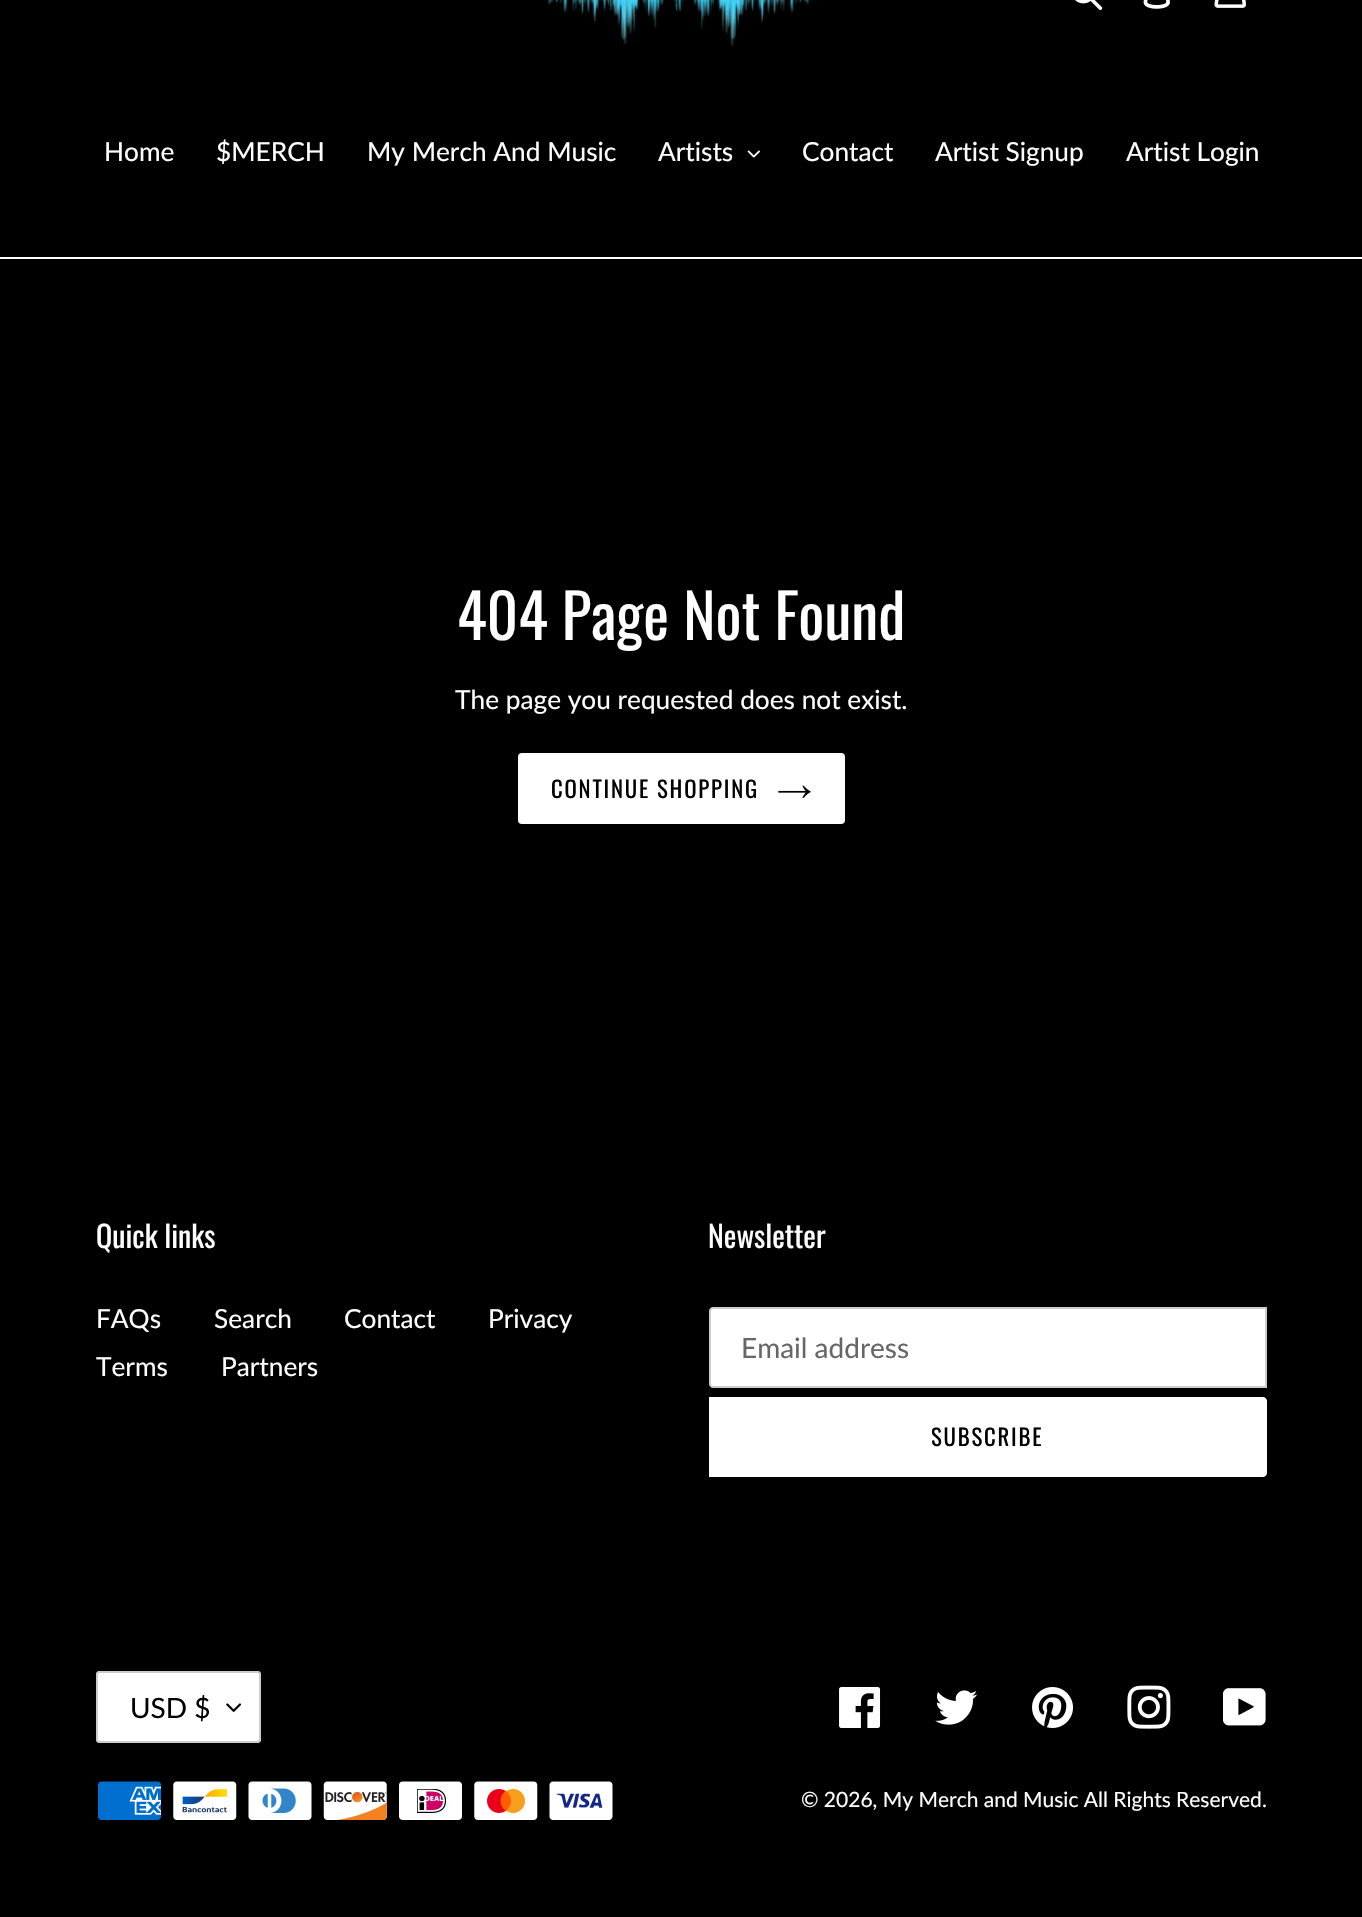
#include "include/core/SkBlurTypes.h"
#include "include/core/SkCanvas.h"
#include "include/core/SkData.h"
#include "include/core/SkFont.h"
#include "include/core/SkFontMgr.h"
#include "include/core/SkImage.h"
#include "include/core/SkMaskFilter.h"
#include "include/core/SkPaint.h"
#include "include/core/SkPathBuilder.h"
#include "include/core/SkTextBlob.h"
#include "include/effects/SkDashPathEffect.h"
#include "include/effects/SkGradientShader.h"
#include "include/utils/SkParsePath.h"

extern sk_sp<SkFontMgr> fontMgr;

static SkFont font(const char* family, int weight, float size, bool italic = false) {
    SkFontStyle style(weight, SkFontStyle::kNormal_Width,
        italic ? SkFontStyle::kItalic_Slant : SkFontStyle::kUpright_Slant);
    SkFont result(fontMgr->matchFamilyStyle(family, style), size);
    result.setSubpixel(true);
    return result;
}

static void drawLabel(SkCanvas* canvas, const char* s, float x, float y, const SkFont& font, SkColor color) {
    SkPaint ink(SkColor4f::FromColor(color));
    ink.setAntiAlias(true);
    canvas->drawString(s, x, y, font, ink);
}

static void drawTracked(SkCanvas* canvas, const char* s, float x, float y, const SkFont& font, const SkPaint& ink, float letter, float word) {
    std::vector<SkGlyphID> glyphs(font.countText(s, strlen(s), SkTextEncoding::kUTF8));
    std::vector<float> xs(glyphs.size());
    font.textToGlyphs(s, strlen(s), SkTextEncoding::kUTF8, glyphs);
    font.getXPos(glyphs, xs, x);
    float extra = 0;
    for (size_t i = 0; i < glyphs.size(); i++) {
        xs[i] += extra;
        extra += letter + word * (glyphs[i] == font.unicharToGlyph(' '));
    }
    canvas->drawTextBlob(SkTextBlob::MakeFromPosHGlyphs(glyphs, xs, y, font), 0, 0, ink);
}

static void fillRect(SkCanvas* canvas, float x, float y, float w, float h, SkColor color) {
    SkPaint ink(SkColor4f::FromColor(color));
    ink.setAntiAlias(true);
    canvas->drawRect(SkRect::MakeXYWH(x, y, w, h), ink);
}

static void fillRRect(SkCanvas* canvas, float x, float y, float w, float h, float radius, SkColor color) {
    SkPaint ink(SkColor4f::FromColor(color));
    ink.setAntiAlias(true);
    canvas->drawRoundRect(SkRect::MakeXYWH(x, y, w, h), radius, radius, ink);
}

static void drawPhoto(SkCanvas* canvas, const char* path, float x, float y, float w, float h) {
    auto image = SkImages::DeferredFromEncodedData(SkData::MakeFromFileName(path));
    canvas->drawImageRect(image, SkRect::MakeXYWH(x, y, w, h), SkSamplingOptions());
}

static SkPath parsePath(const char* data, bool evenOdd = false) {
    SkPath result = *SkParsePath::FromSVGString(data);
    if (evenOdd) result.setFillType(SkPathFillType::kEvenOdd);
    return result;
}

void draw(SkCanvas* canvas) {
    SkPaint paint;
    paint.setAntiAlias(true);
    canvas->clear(0xFF000000);
    drawPhoto(canvas, "assets/img1.png", 547, 0, 263, 47);
    drawPhoto(canvas, "assets/img2.png", 1075, 0, 28, 10);
    drawPhoto(canvas, "assets/img3.png", 1143, 0, 27, 9);
    drawPhoto(canvas, "assets/img4.png", 1214, 0, 32, 8);
    fillRect(canvas, 0, 257, 1362, 2, 0xFFFFFFFF);
    SkFont font1 = font("Lato", 400, 26.25f);
    drawLabel(canvas, "Home", 104, 161, font1, 0xFFFFFFFF);
    drawLabel(canvas, "$MERCH", 216, 161, font1, 0xFFFFFFFF);
    drawLabel(canvas, "My Merch And Music", 367, 161, font1, 0xFFFFFFFF);
    drawLabel(canvas, "Artists", 658, 161, font1, 0xFFFFFFFF);
    drawPhoto(canvas, "assets/img5.png", 747, 150, 13, 8);
    drawLabel(canvas, "Contact", 802, 161, font1, 0xFFFFFFFF);
    drawLabel(canvas, "Artist Signup", 935, 161, font1, 0xFFFFFFFF);
    drawLabel(canvas, "Artist Login", 1126, 161, font1, 0xFFFFFFFF);
    SkFont font2 = font("Oswald", 400, 61.25f);
    drawLabel(canvas, "404 Page Not Found", 457, 640, font2, 0xFFFFFFFF);
    drawLabel(canvas, "The page you requested does not exist.", 455, 709, font1, 0xFFFFFFFF);
    fillRRect(canvas, 518, 753, 327, 71, 4, 0xFFFFFFFF);
    SkFont font3 = font("Oswald", 400, 22.75f);
    paint.setColor(0xFF000000);
    drawTracked(canvas, "CONTINUE SHOPPING", 551, 798, font3, paint, 1.8f, 0);
    drawPhoto(canvas, "assets/img6.png", 778, 785, 33, 13);
    SkFont font4 = font("Oswald", 400, 30);
    drawLabel(canvas, "Quick links", 96, 1248, font4, 0xFFFFFFFF);
    drawLabel(canvas, "FAQs", 96, 1328, font1, 0xFFFFFFFF);
    drawLabel(canvas, "Search", 214, 1328, font1, 0xFFFFFFFF);
    drawLabel(canvas, "Contact", 344, 1328, font1, 0xFFFFFFFF);
    drawLabel(canvas, "Privacy", 488, 1328, font1, 0xFFFFFFFF);
    drawLabel(canvas, "Terms", 96, 1376, font1, 0xFFFFFFFF);
    drawLabel(canvas, "Partners", 221, 1376, font1, 0xFFFFFFFF);
    drawLabel(canvas, "Newsletter", 708, 1248, font4, 0xFFFFFFFF);
    paint.setColor(0xFFFFFFFF);
    canvas->drawPath(parsePath("M713 1308H1266V1387H713C711.5 1387 710 1385.5 710 1384V1311C710 1309.5 711.5 1308 713 1308Z"), paint);
    paint.setStroke(true);
    paint.setStrokeWidth(2);
    paint.setColor(0xFFCCCCCC);
    canvas->drawPath(parsePath("M713 1308H1266V1387H713C711.5 1387 710 1385.5 710 1384V1311C710 1309.5 711.5 1308 713 1308Z"), paint);
    SkFont font5 = font("Lato", 400, 28);
    drawLabel(canvas, "Email address", 741, 1358, font5, 0xFF666666);
    paint.setStroke(false);
    paint.setColor(0xFFFFFFFF);
    canvas->drawPath(parsePath("M709 1397H1263C1265 1397 1267 1399 1267 1401V1473C1267 1475 1265 1477 1263 1477H709Z"), paint);
    paint.setColor(0xFF000000);
    drawTracked(canvas, "SUBSCRIBE", 931, 1446, font3, paint, 1.8f, 0);
    fillRRect(canvas, 96, 1671, 165, 72, 4, 0xFFFFFFFF);
    drawPhoto(canvas, "assets/img7.png", 226, 1703, 15, 9);
    paint.setStroke(true);
    paint.setColor(0xFFCCCCCC);
    canvas->drawRoundRect(SkRect::MakeXYWH(97, 1672, 163, 70), 3, 3, paint);
    drawLabel(canvas, "USD $", 130, 1718, font5, 0xFF000000);
    drawPhoto(canvas, "assets/img8.png", 839, 1687, 42, 41);
    drawPhoto(canvas, "assets/img9.png", 935, 1690, 43, 35);
    drawPhoto(canvas, "assets/img10.png", 1032, 1687, 41, 41);
    drawPhoto(canvas, "assets/img11.png", 1127, 1685, 44, 44);
    drawPhoto(canvas, "assets/img12.png", 1223, 1688, 43, 38);
    drawPhoto(canvas, "assets/img13.png", 98, 1781, 63, 39);
    drawPhoto(canvas, "assets/img14.png", 173, 1781, 64, 39);
    drawPhoto(canvas, "assets/img15.png", 248, 1781, 64, 39);
    drawPhoto(canvas, "assets/img16.png", 323, 1781, 64, 39);
    drawPhoto(canvas, "assets/img17.png", 399, 1781, 63, 39);
    drawPhoto(canvas, "assets/img18.png", 474, 1781, 64, 39);
    drawPhoto(canvas, "assets/img19.png", 549, 1781, 64, 39);
    SkFont font6 = font("Lato", 400, 21);
    drawLabel(canvas, "© 2026, My Merch and Music All Rights Reserved.", 801, 1807, font6, 0xFFFFFFFF);
}
